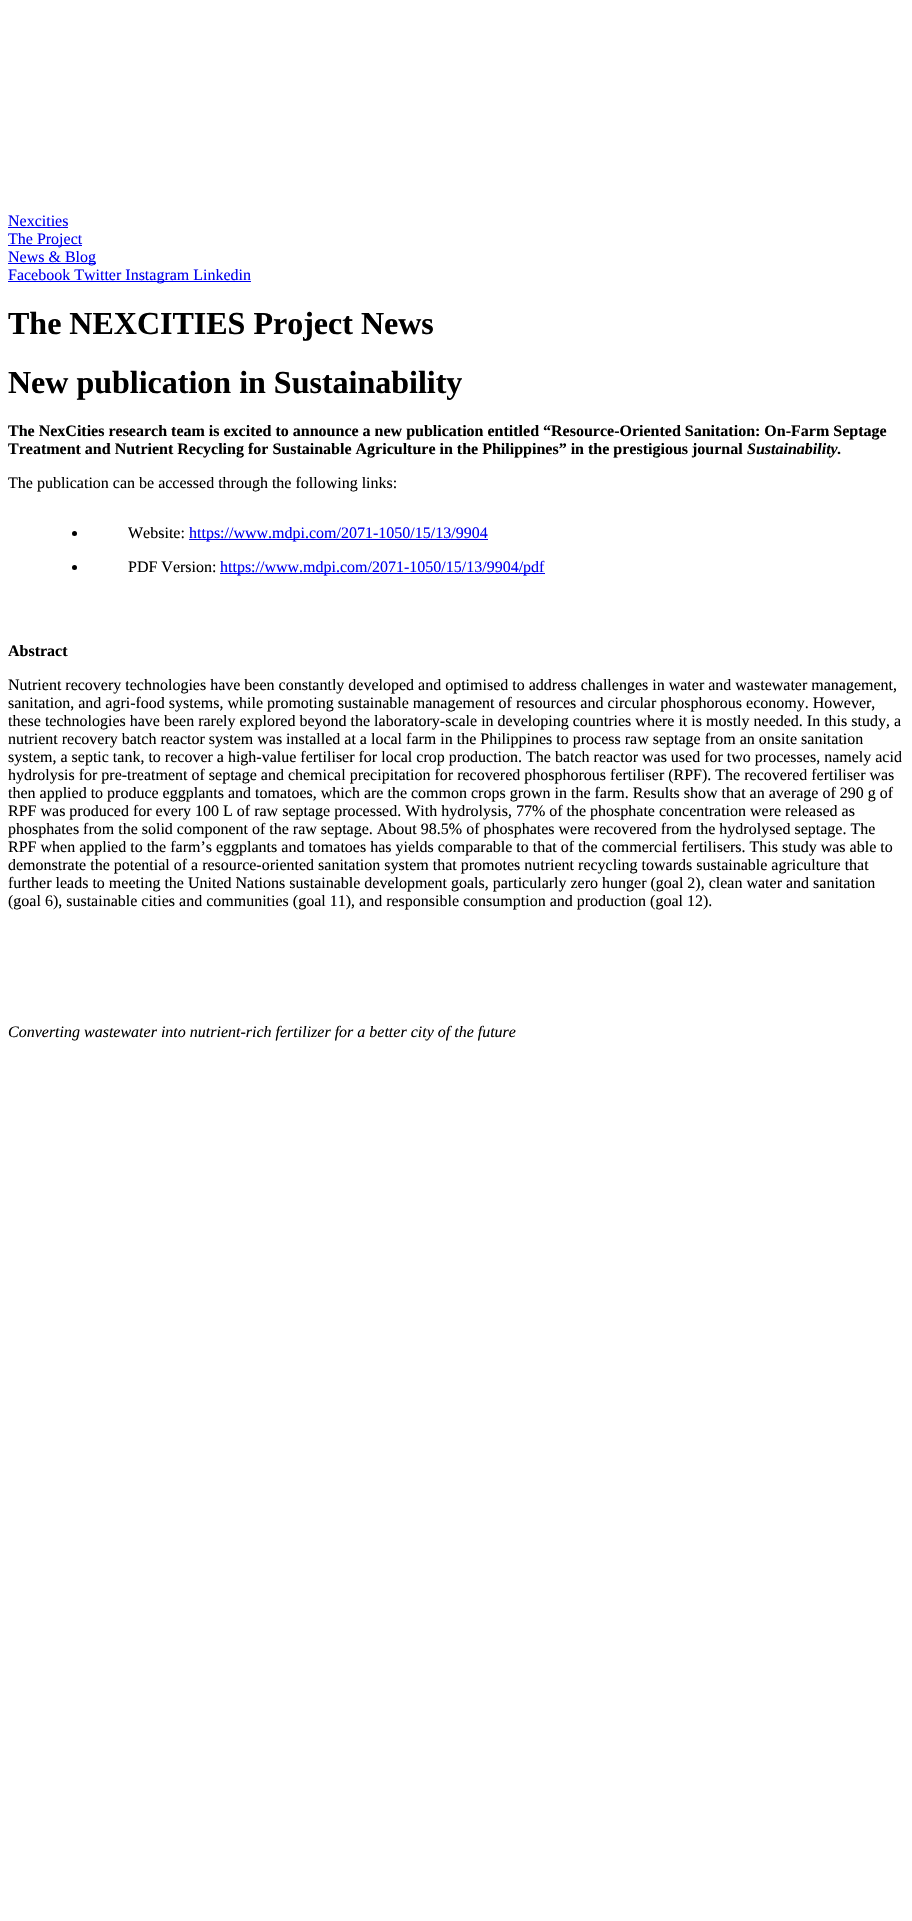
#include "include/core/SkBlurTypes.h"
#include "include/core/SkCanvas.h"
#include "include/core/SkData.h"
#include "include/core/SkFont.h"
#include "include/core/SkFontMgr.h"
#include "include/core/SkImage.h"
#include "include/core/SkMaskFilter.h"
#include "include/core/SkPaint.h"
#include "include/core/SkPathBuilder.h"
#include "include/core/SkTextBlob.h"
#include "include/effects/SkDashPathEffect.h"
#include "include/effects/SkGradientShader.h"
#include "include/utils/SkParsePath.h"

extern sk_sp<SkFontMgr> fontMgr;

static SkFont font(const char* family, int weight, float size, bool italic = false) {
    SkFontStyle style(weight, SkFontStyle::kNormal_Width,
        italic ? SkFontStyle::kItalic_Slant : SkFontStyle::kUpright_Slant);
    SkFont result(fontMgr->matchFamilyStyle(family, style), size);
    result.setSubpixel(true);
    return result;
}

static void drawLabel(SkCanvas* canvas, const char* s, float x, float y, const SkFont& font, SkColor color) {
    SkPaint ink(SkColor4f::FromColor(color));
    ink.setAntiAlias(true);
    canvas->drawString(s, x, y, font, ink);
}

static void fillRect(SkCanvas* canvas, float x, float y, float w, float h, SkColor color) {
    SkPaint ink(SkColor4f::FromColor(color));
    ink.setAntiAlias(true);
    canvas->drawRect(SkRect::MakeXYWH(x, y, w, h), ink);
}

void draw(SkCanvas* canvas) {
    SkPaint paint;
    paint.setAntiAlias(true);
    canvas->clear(0xFFFFFFFF);
    SkFont font1 = font("Liberation Serif", 400, 16);
    drawLabel(canvas, "Nexcities", 8, 226, font1, 0xFF0000EE);
    fillRect(canvas, 8, 227, 60, 1, 0xFF0000EE);
    fillRect(canvas, 8, 245, 74, 1, 0xFF0000EE);
    drawLabel(canvas, "The Project", 8, 244, font1, 0xFF0000EE);
    fillRect(canvas, 8, 263, 88, 1, 0xFF0000EE);
    drawLabel(canvas, "News & Blog", 8, 262, font1, 0xFF0000EE);
    fillRect(canvas, 8, 281, 181, 1, 0xFF0000EE);
    drawLabel(canvas, "Facebook Twitter Instagram Linkedin", 8, 280, font1, 0xFF0000EE);
    fillRect(canvas, 189, 281, 62, 1, 0xFF0000EE);
    SkFont font2 = font("Liberation Serif", 700, 32);
    drawLabel(canvas, "The NEXCITIES Project News", 8, 334, font2, 0xFF000000);
    drawLabel(canvas, "New publication in Sustainability", 8, 393, font2, 0xFF000000);
    SkFont font3 = font("Liberation Serif", 700, 16);
    drawLabel(canvas, "The NexCities research team is excited to announce a new publication entitled “Resource-Oriented Sanitation: On-Farm Septage", 8, 436, font3, 0xFF000000);
    drawLabel(canvas, "Treatment and Nutrient Recycling for Sustainable Agriculture in the Philippines” in the prestigious journal", 8, 454, font3, 0xFF000000);
    SkFont font4 = font("Liberation Serif", 700, 16, true);
    drawLabel(canvas, "Sustainability", 747, 454, font4, 0xFF000000);
    drawLabel(canvas, ".", 837, 454, font3, 0xFF000000);
    drawLabel(canvas, "The publication can be accessed through the following links:", 8, 488, font1, 0xFF000000);
    paint.setColor(0xFF000000);
    canvas->drawCircle(74.5f, 533.5f, 2.5f, paint);
    drawLabel(canvas, "Website:", 128, 538, font1, 0xFF000000);
    fillRect(canvas, 189, 539, 299, 1, 0xFF0000EE);
    drawLabel(canvas, "https://www.mdpi.com/2071-1050/15/13/9904", 189, 538, font1, 0xFF0000EE);
    canvas->drawCircle(74.5f, 567.5f, 2.5f, paint);
    drawLabel(canvas, "PDF Version:", 128, 572, font1, 0xFF000000);
    fillRect(canvas, 220, 573, 325, 1, 0xFF0000EE);
    drawLabel(canvas, "https://www.mdpi.com/2071-1050/15/13/9904/pdf", 220, 572, font1, 0xFF0000EE);
    drawLabel(canvas, "Abstract", 8, 656, font3, 0xFF000000);
    drawLabel(canvas, "Nutrient recovery technologies have been constantly developed and optimised to address challenges in water and wastewater management,", 8, 690, font1, 0xFF000000);
    drawLabel(canvas, "sanitation, and agri-food systems, while promoting sustainable management of resources and circular phosphorous economy. However,", 8, 708, font1, 0xFF000000);
    drawLabel(canvas, "these technologies have been rarely explored beyond the laboratory-scale in developing countries where it is mostly needed. In this study, a", 8, 726, font1, 0xFF000000);
    drawLabel(canvas, "nutrient recovery batch reactor system was installed at a local farm in the Philippines to process raw septage from an onsite sanitation", 8, 744, font1, 0xFF000000);
    drawLabel(canvas, "system, a septic tank, to recover a high-value fertiliser for local crop production. The batch reactor was used for two processes, namely acid", 8, 762, font1, 0xFF000000);
    drawLabel(canvas, "hydrolysis for pre-treatment of septage and chemical precipitation for recovered phosphorous fertiliser (RPF). The recovered fertiliser was", 8, 780, font1, 0xFF000000);
    drawLabel(canvas, "then applied to produce eggplants and tomatoes, which are the common crops grown in the farm. Results show that an average of 290 g of", 8, 798, font1, 0xFF000000);
    drawLabel(canvas, "RPF was produced for every 100 L of raw septage processed. With hydrolysis, 77% of the phosphate concentration were released as", 8, 816, font1, 0xFF000000);
    drawLabel(canvas, "phosphates from the solid component of the raw septage. About 98.5% of phosphates were recovered from the hydrolysed septage. The", 8, 834, font1, 0xFF000000);
    drawLabel(canvas, "RPF when applied to the farm’s eggplants and tomatoes has yields comparable to that of the commercial fertilisers. This study was able to", 8, 852, font1, 0xFF000000);
    drawLabel(canvas, "demonstrate the potential of a resource-oriented sanitation system that promotes nutrient recycling towards sustainable agriculture that", 8, 870, font1, 0xFF000000);
    drawLabel(canvas, "further leads to meeting the United Nations sustainable development goals, particularly zero hunger (goal 2), clean water and sanitation", 8, 888, font1, 0xFF000000);
    drawLabel(canvas, "(goal 6), sustainable cities and communities (goal 11), and responsible consumption and production (goal 12).", 8, 906, font1, 0xFF000000);
    SkFont font5 = font("Liberation Serif", 400, 16, true);
    drawLabel(canvas, "Converting wastewater into nutrient-rich fertilizer for a better city of the future", 8, 1037, font5, 0xFF000000);
}
